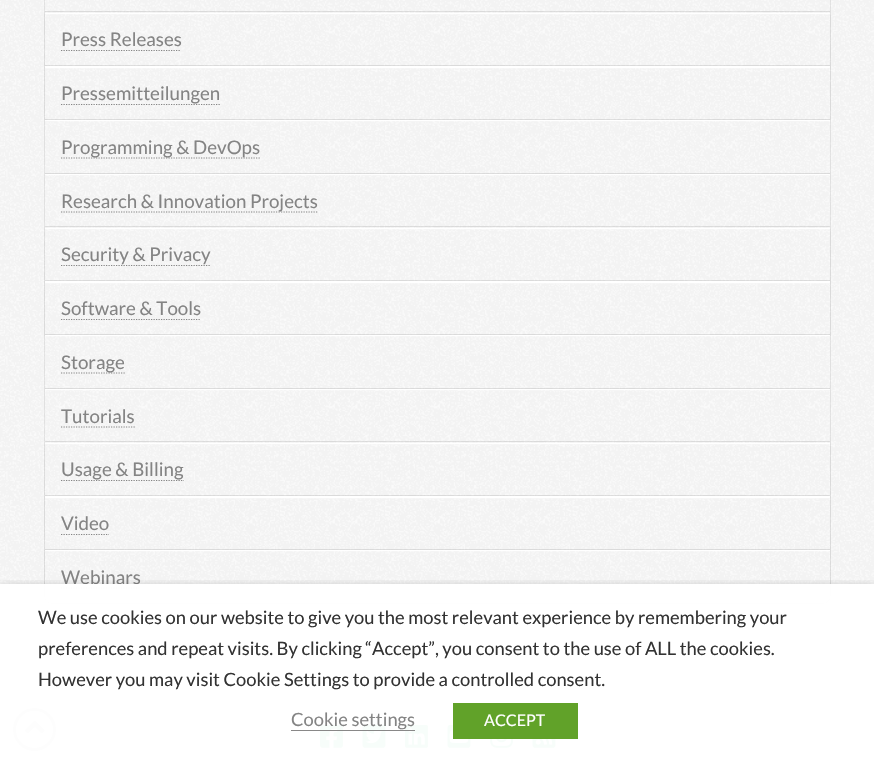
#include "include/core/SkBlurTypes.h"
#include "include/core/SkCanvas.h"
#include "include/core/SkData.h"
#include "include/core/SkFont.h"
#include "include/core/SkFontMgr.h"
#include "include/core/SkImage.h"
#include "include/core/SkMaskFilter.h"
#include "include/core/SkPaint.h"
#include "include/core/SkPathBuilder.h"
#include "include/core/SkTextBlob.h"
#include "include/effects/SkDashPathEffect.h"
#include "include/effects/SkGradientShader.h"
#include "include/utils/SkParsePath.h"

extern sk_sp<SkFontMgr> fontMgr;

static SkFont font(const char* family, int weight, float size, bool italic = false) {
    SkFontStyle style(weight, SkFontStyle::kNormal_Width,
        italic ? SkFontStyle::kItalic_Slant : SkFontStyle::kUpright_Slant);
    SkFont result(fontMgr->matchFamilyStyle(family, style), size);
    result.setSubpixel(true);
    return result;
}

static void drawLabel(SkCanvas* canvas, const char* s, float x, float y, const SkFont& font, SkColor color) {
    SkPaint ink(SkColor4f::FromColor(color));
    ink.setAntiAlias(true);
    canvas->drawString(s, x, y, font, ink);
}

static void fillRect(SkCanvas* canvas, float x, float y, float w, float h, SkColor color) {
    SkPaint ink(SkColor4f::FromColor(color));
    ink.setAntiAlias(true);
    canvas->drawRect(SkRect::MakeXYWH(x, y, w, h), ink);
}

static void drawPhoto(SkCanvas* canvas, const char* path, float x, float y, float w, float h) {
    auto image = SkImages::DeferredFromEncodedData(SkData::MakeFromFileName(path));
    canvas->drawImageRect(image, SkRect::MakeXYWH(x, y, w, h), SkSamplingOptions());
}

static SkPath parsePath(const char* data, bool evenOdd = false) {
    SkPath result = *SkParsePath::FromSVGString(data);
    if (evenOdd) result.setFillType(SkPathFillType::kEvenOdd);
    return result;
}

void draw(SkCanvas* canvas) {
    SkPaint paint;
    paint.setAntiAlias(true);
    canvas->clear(0xFFFFFFFF);
    drawPhoto(canvas, "assets/img1.png", 0, 0, 874, 654);
    canvas->save();
    canvas->clipPath(parsePath("M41 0H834V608H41ZM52-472H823C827.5-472 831-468.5 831-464V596C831 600.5 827.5 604 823 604H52C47.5 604 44 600.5 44 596V-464C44-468.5 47.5-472 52-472Z", true), true);
    paint.setColor(0xF2FFFFFF);
    paint.setMaskFilter(SkMaskFilter::MakeBlur(kNormal_SkBlurStyle, 0.5f));
    canvas->drawRoundRect(SkRect::MakeXYWH(44, -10, 787, 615), 8, 8, paint);
    paint.setMaskFilter(nullptr);
    canvas->restore();
    paint.setStroke(true);
    paint.setStrokeWidth(1);
    paint.setColor(0x1A000000);
    canvas->drawRoundRect(SkRect::MakeXYWH(44.5f, -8.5f, 786, 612), 7.5f, 7.5f, paint);
    canvas->save();
    canvas->clipPath(parsePath("M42 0H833V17H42ZM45-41H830V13H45Z", true), true);
    paint.setStroke(false);
    paint.setColor(0xF2FFFFFF);
    paint.setMaskFilter(SkMaskFilter::MakeBlur(kNormal_SkBlurStyle, 0.5f));
    canvas->drawRect(SkRect::MakeXYWH(45, -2, 785, 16), paint);
    paint.setMaskFilter(nullptr);
    canvas->restore();
    fillRect(canvas, 45, 11, 785, 1, 0x1A000000);
    canvas->save();
    canvas->clipRect(SkRect::MakeXYWH(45, 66, 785, 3));
    paint.setMaskFilter(SkMaskFilter::MakeBlur(kNormal_SkBlurStyle, 0.5f));
    canvas->drawRect(SkRect::MakeXYWH(45, 14, 785, 54), paint);
    paint.setMaskFilter(nullptr);
    canvas->restore();
    fillRect(canvas, 45, 65, 785, 1, 0x1A000000);
    SkFont font1 = font("Lato", 400, 18.75f);
    drawLabel(canvas, "Press Releases", 61, 46, font1, 0xFF848484);
    paint.setStroke(true);
    paint.setStrokeWidth(1.2f);
    paint.setColor(0xFF848484);
    paint.setPathEffect(SkDashPathEffect::Make({{1.25f, 1.25f}}, 0));
    canvas->drawPath(parsePath("M61 50.5H181"), paint);
    paint.setPathEffect(nullptr);
    canvas->save();
    canvas->clipRect(SkRect::MakeXYWH(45, 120, 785, 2));
    paint.setStroke(false);
    paint.setColor(0xF2FFFFFF);
    paint.setMaskFilter(SkMaskFilter::MakeBlur(kNormal_SkBlurStyle, 0.5f));
    canvas->drawRect(SkRect::MakeXYWH(45, 68, 785, 53), paint);
    paint.setMaskFilter(nullptr);
    canvas->restore();
    fillRect(canvas, 45, 119, 785, 1, 0x1A000000);
    paint.setStroke(true);
    paint.setColor(0xFF848484);
    paint.setPathEffect(SkDashPathEffect::Make({{1.25f, 1.25f}}, 0));
    canvas->drawPath(parsePath("M61 104.5H220"), paint);
    paint.setPathEffect(nullptr);
    drawLabel(canvas, "Pressemitteilungen", 61, 100, font1, 0xFF848484);
    canvas->save();
    canvas->clipPath(parsePath("M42 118H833V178H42ZM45 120H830V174H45Z", true), true);
    paint.setStroke(false);
    paint.setColor(0xF2FFFFFF);
    paint.setMaskFilter(SkMaskFilter::MakeBlur(kNormal_SkBlurStyle, 0.5f));
    canvas->drawRect(SkRect::MakeXYWH(45, 121, 785, 54), paint);
    paint.setMaskFilter(nullptr);
    canvas->restore();
    fillRect(canvas, 45, 173, 785, 1, 0x1A000000);
    paint.setStroke(true);
    paint.setColor(0xFF848484);
    paint.setPathEffect(SkDashPathEffect::Make({{1.25f, 1.25f}}, 0));
    canvas->drawPath(parsePath("M61 158H260"), paint);
    paint.setPathEffect(nullptr);
    drawLabel(canvas, "Programming & DevOps", 61, 154, font1, 0xFF848484);
    canvas->save();
    canvas->clipPath(parsePath("M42 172H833V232H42ZM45 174H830V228H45Z", true), true);
    paint.setStroke(false);
    paint.setColor(0xF2FFFFFF);
    paint.setMaskFilter(SkMaskFilter::MakeBlur(kNormal_SkBlurStyle, 0.5f));
    canvas->drawRect(SkRect::MakeXYWH(45, 175, 785, 54), paint);
    paint.setMaskFilter(nullptr);
    canvas->restore();
    fillRect(canvas, 45, 226, 785, 1, 0x1A000000);
    paint.setStroke(true);
    paint.setColor(0xFF848484);
    paint.setPathEffect(SkDashPathEffect::Make({{1.25f, 1.25f}}, 0));
    canvas->drawPath(parsePath("M61 212H317.5"), paint);
    paint.setPathEffect(nullptr);
    drawLabel(canvas, "Research & Innovation Projects", 61, 208, font1, 0xFF848484);
    canvas->save();
    canvas->clipRect(SkRect::MakeXYWH(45, 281, 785, 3));
    paint.setStroke(false);
    paint.setColor(0xF2FFFFFF);
    paint.setMaskFilter(SkMaskFilter::MakeBlur(kNormal_SkBlurStyle, 0.5f));
    canvas->drawRect(SkRect::MakeXYWH(45, 229, 785, 54), paint);
    paint.setMaskFilter(nullptr);
    canvas->restore();
    fillRect(canvas, 45, 280, 785, 1, 0x1A000000);
    paint.setStroke(true);
    paint.setColor(0xFF848484);
    paint.setPathEffect(SkDashPathEffect::Make({{1.25f, 1.25f}}, 0));
    canvas->drawPath(parsePath("M61 265.5H210"), paint);
    paint.setPathEffect(nullptr);
    drawLabel(canvas, "Security & Privacy", 61, 261, font1, 0xFF848484);
    canvas->save();
    canvas->clipRect(SkRect::MakeXYWH(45, 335, 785, 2));
    paint.setStroke(false);
    paint.setColor(0xF2FFFFFF);
    paint.setMaskFilter(SkMaskFilter::MakeBlur(kNormal_SkBlurStyle, 0.5f));
    canvas->drawRect(SkRect::MakeXYWH(45, 283, 785, 53), paint);
    paint.setMaskFilter(nullptr);
    canvas->restore();
    fillRect(canvas, 45, 334, 785, 1, 0x1A000000);
    drawLabel(canvas, "Software & Tools", 61, 315, font1, 0xFF848484);
    paint.setStroke(true);
    paint.setColor(0xFF848484);
    paint.setPathEffect(SkDashPathEffect::Make({{1.25f, 1.25f}}, 0));
    canvas->drawPath(parsePath("M61 319.5H201"), paint);
    paint.setPathEffect(nullptr);
    canvas->save();
    canvas->clipPath(parsePath("M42 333H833V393H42ZM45 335H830V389H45Z", true), true);
    paint.setStroke(false);
    paint.setColor(0xF2FFFFFF);
    paint.setMaskFilter(SkMaskFilter::MakeBlur(kNormal_SkBlurStyle, 0.5f));
    canvas->drawRect(SkRect::MakeXYWH(45, 336, 785, 54), paint);
    paint.setMaskFilter(nullptr);
    canvas->restore();
    fillRect(canvas, 45, 388, 785, 1, 0x1A000000);
    paint.setStroke(true);
    paint.setColor(0xFF848484);
    paint.setPathEffect(SkDashPathEffect::Make({{1.25f, 1.25f}}, 0));
    canvas->drawPath(parsePath("M61 373H125"), paint);
    paint.setPathEffect(nullptr);
    drawLabel(canvas, "Storage", 61, 369, font1, 0xFF848484);
    canvas->save();
    canvas->clipPath(parsePath("M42 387H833V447H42ZM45 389H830V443H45Z", true), true);
    paint.setStroke(false);
    paint.setColor(0xF2FFFFFF);
    paint.setMaskFilter(SkMaskFilter::MakeBlur(kNormal_SkBlurStyle, 0.5f));
    canvas->drawRect(SkRect::MakeXYWH(45, 390, 785, 54), paint);
    paint.setMaskFilter(nullptr);
    canvas->restore();
    fillRect(canvas, 45, 441, 785, 1, 0x1A000000);
    drawLabel(canvas, "Tutorials", 61, 423, font1, 0xFF848484);
    paint.setStroke(true);
    paint.setColor(0xFF848484);
    paint.setPathEffect(SkDashPathEffect::Make({{1.25f, 1.25f}}, 0));
    canvas->drawPath(parsePath("M61 427H135"), paint);
    paint.setPathEffect(nullptr);
    canvas->save();
    canvas->clipRect(SkRect::MakeXYWH(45, 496, 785, 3));
    paint.setStroke(false);
    paint.setColor(0xF2FFFFFF);
    paint.setMaskFilter(SkMaskFilter::MakeBlur(kNormal_SkBlurStyle, 0.5f));
    canvas->drawRect(SkRect::MakeXYWH(45, 444, 785, 54), paint);
    paint.setMaskFilter(nullptr);
    canvas->restore();
    fillRect(canvas, 45, 495, 785, 1, 0x1A000000);
    paint.setStroke(true);
    paint.setColor(0xFF848484);
    paint.setPathEffect(SkDashPathEffect::Make({{1.25f, 1.25f}}, 0));
    canvas->drawPath(parsePath("M61 480.5H184"), paint);
    paint.setPathEffect(nullptr);
    drawLabel(canvas, "Usage & Billing", 61, 476, font1, 0xFF848484);
    canvas->save();
    canvas->clipRect(SkRect::MakeXYWH(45, 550, 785, 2));
    paint.setStroke(false);
    paint.setColor(0xF2FFFFFF);
    paint.setMaskFilter(SkMaskFilter::MakeBlur(kNormal_SkBlurStyle, 0.5f));
    canvas->drawRect(SkRect::MakeXYWH(45, 498, 785, 53), paint);
    paint.setMaskFilter(nullptr);
    canvas->restore();
    fillRect(canvas, 45, 549, 785, 1, 0x1A000000);
    drawLabel(canvas, "Video", 61, 530, font1, 0xFF848484);
    paint.setStroke(true);
    paint.setColor(0xFF848484);
    paint.setPathEffect(SkDashPathEffect::Make({{1.25f, 1.25f}}, 0));
    canvas->drawPath(parsePath("M61 534.5H109"), paint);
    paint.setPathEffect(nullptr);
    drawLabel(canvas, "Webinars", 61, 584, font1, 0xFF848484);
    paint.setPathEffect(SkDashPathEffect::Make({{1.25f, 1.25f}}, 0));
    canvas->drawPath(parsePath("M61 588H141"), paint);
    paint.setPathEffect(nullptr);
    drawPhoto(canvas, "assets/img2.png", 320, 724, 23, 24);
    drawPhoto(canvas, "assets/img3.png", 362, 724, 24, 24);
    drawPhoto(canvas, "assets/img4.png", 405, 724, 23, 24);
    drawPhoto(canvas, "assets/img5.png", 447, 724, 24, 24);
    drawPhoto(canvas, "assets/img6.png", 490, 739, 23, 9);
    drawPhoto(canvas, "assets/img7.png", 532, 739, 24, 9);
    paint.setStrokeWidth(3);
    paint.setColor(0xFFAEAEAE);
    canvas->drawCircle(34.5f, 729.5f, 20, paint);
    drawPhoto(canvas, "assets/img8.png", 25, 720, 20, 14);
    canvas->save();
    canvas->clipRect(SkRect::MakeXYWH(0, 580, 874, 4));
    paint.setStroke(false);
    paint.setColor(0x80000000);
    paint.setMaskFilter(SkMaskFilter::MakeBlur(kNormal_SkBlurStyle, 6));
    canvas->drawRect(SkRect::MakeXYWH(0, 590, 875, 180), paint);
    paint.setMaskFilter(nullptr);
    canvas->restore();
    fillRect(canvas, 0, 584, 874, 167, 0xF7FFFFFF);
    SkFont font2 = font("Lato", 400, 18.35f);
    drawLabel(canvas, "We use cookies on our website to give you the most relevant experience by remembering your", 38, 624, font2, 0xFF333333);
    drawLabel(canvas, "preferences and repeat visits. By clicking “Accept”, you consent to the use of ALL the cookies.", 38, 655, font2, 0xFF333333);
    drawLabel(canvas, "However you may visit Cookie Settings to provide a controlled consent.", 38, 686, font2, 0xFF333333);
    drawLabel(canvas, "Cookie settings", 291, 726, font2, 0xFF848484);
    fillRect(canvas, 291, 730, 124, 1, 0xFF898888);
    fillRect(canvas, 453, 703, 125, 36, 0xFF61A229);
    SkFont font3 = font("Lato", 400, 16);
    drawLabel(canvas, "ACCEPT", 484, 726, font3, 0xFFFFFFFF);
}
